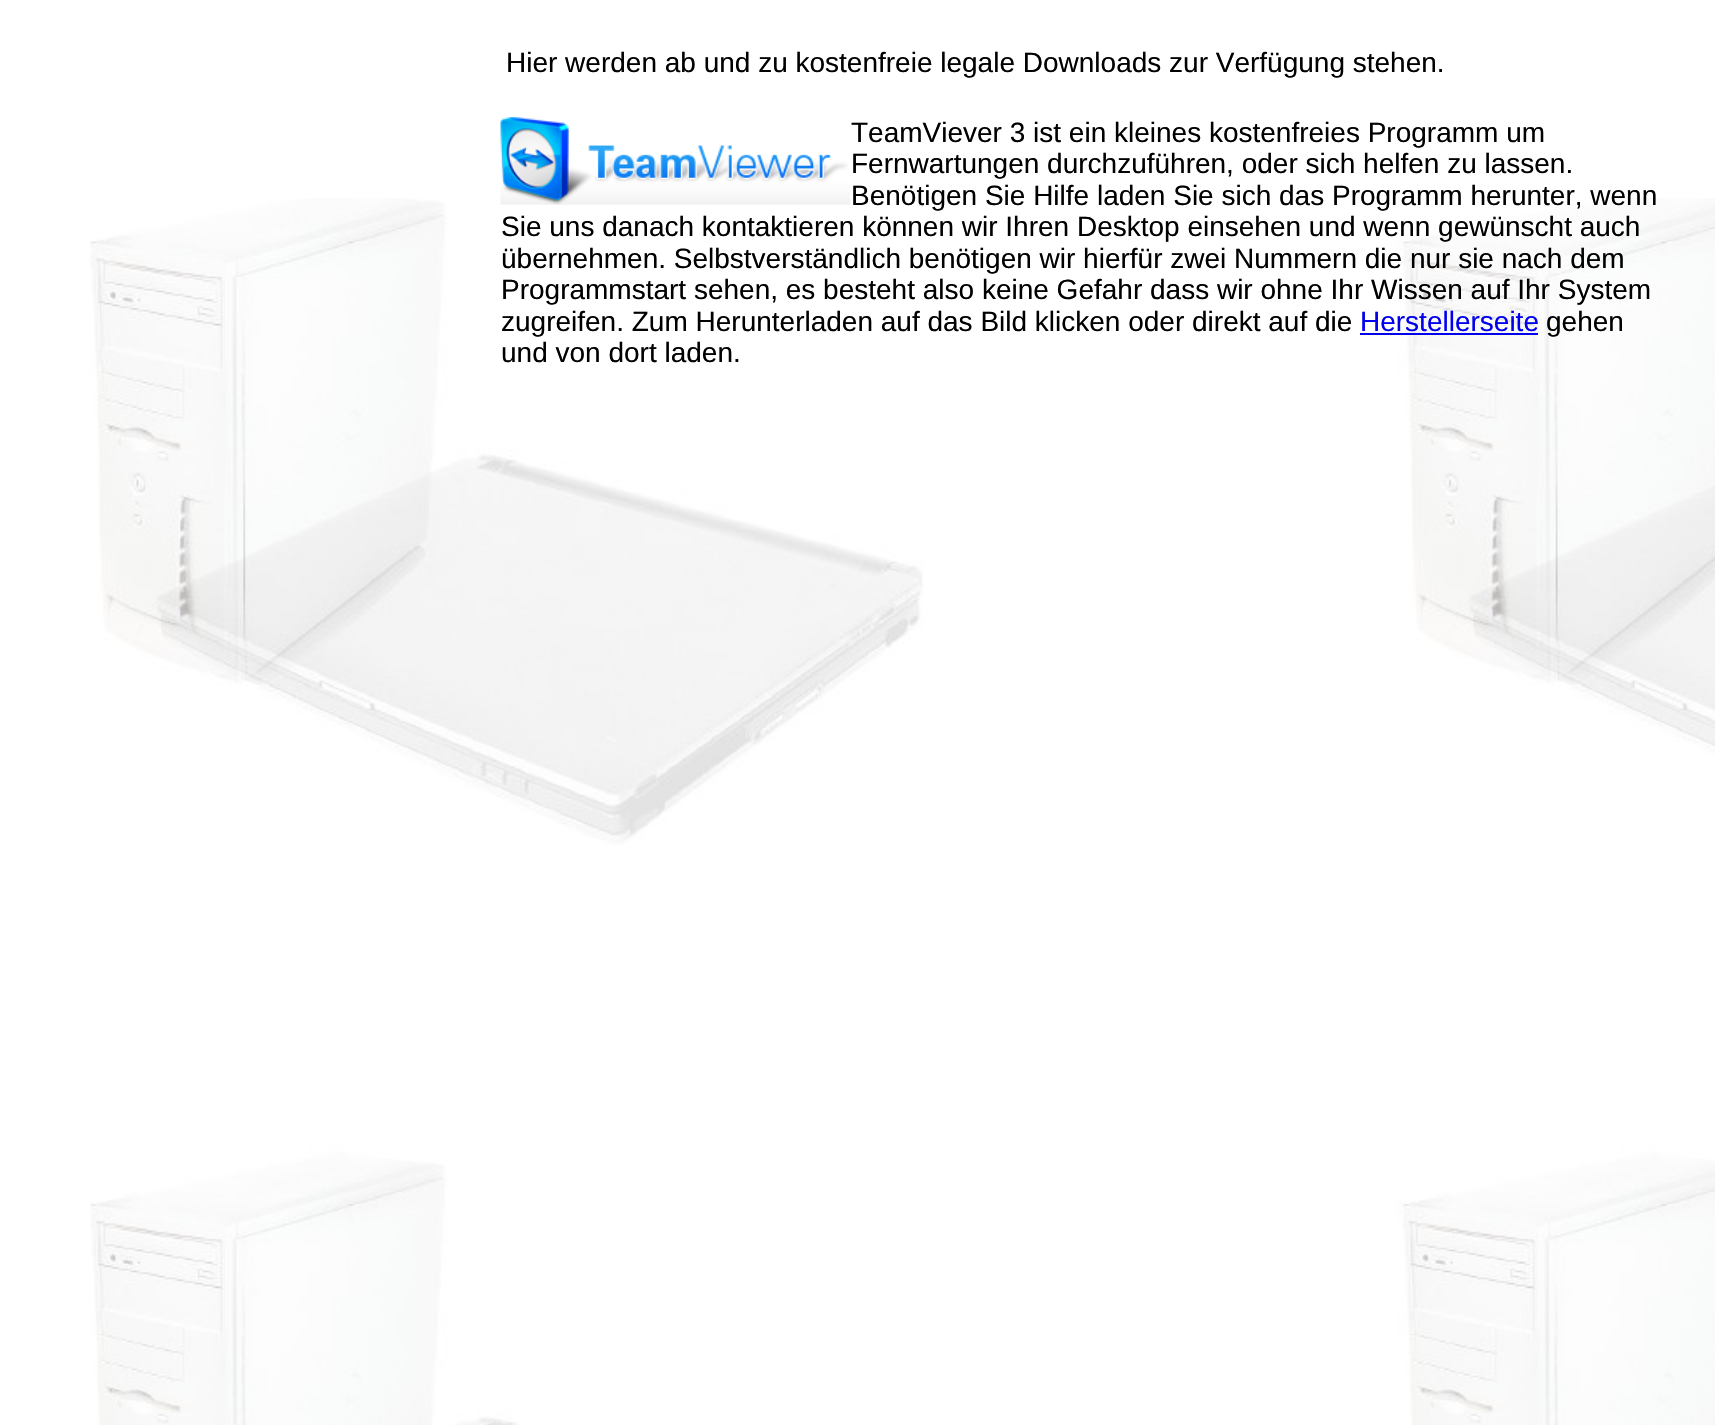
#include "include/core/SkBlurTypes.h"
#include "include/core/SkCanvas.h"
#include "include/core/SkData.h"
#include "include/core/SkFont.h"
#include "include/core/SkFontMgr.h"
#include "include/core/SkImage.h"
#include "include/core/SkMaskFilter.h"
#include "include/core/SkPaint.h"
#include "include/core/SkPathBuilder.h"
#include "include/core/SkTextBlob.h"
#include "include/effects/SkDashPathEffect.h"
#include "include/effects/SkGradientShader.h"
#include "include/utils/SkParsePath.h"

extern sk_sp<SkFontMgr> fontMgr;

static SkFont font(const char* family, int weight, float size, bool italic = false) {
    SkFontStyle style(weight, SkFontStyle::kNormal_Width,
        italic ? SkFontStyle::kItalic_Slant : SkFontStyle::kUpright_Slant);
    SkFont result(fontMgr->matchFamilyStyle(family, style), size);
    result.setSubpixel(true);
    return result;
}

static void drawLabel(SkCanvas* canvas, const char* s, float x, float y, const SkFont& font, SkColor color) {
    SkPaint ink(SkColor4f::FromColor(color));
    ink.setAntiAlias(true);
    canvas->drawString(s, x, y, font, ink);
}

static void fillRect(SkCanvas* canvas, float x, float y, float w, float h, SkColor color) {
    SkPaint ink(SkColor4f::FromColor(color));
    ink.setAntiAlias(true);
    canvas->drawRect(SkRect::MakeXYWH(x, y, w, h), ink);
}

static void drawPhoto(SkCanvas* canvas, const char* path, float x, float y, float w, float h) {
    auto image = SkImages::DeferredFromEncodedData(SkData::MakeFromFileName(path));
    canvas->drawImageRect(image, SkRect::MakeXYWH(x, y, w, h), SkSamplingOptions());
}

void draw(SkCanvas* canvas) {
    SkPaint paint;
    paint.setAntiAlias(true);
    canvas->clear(0xFFFFFFFF);
    drawPhoto(canvas, "assets/img1.png", 90, 198, 1625, 1227);
    SkFont font1 = font("Liberation Sans", 400, 28);
    drawLabel(canvas, "Hier werden ab und zu kostenfreie legale Downloads zur Verfügung stehen.", 506, 72, font1, 0xFF000000);
    drawPhoto(canvas, "assets/img2.png", 500, 117, 351, 88);
    drawLabel(canvas, "TeamViever 3 ist ein kleines kostenfreies Programm um", 851, 142, font1, 0xFF000000);
    drawLabel(canvas, "Fernwartungen durchzuführen, oder sich helfen zu lassen.", 851, 173, font1, 0xFF000000);
    drawLabel(canvas, "Benötigen Sie Hilfe laden Sie sich das Programm herunter, wenn", 851, 205, font1, 0xFF000000);
    drawLabel(canvas, "Sie uns danach kontaktieren können wir Ihren Desktop einsehen und wenn gewünscht auch", 501, 236, font1, 0xFF000000);
    drawLabel(canvas, "übernehmen. Selbstverständlich benötigen wir hierfür zwei Nummern die nur sie nach dem", 501, 268, font1, 0xFF000000);
    drawLabel(canvas, "Programmstart sehen, es besteht also keine Gefahr dass wir ohne Ihr Wissen auf Ihr System", 501, 299, font1, 0xFF000000);
    drawLabel(canvas, "zugreifen. Zum Herunterladen auf das Bild klicken oder direkt auf die", 501, 331, font1, 0xFF000000);
    drawLabel(canvas, "Herstellerseite", 1360, 331, font1, 0xFF0000EE);
    fillRect(canvas, 1360, 333, 178, 2, 0xFF0000EE);
    drawLabel(canvas, "gehen", 1546, 331, font1, 0xFF000000);
    drawLabel(canvas, "und von dort laden.", 501, 362, font1, 0xFF000000);
}
